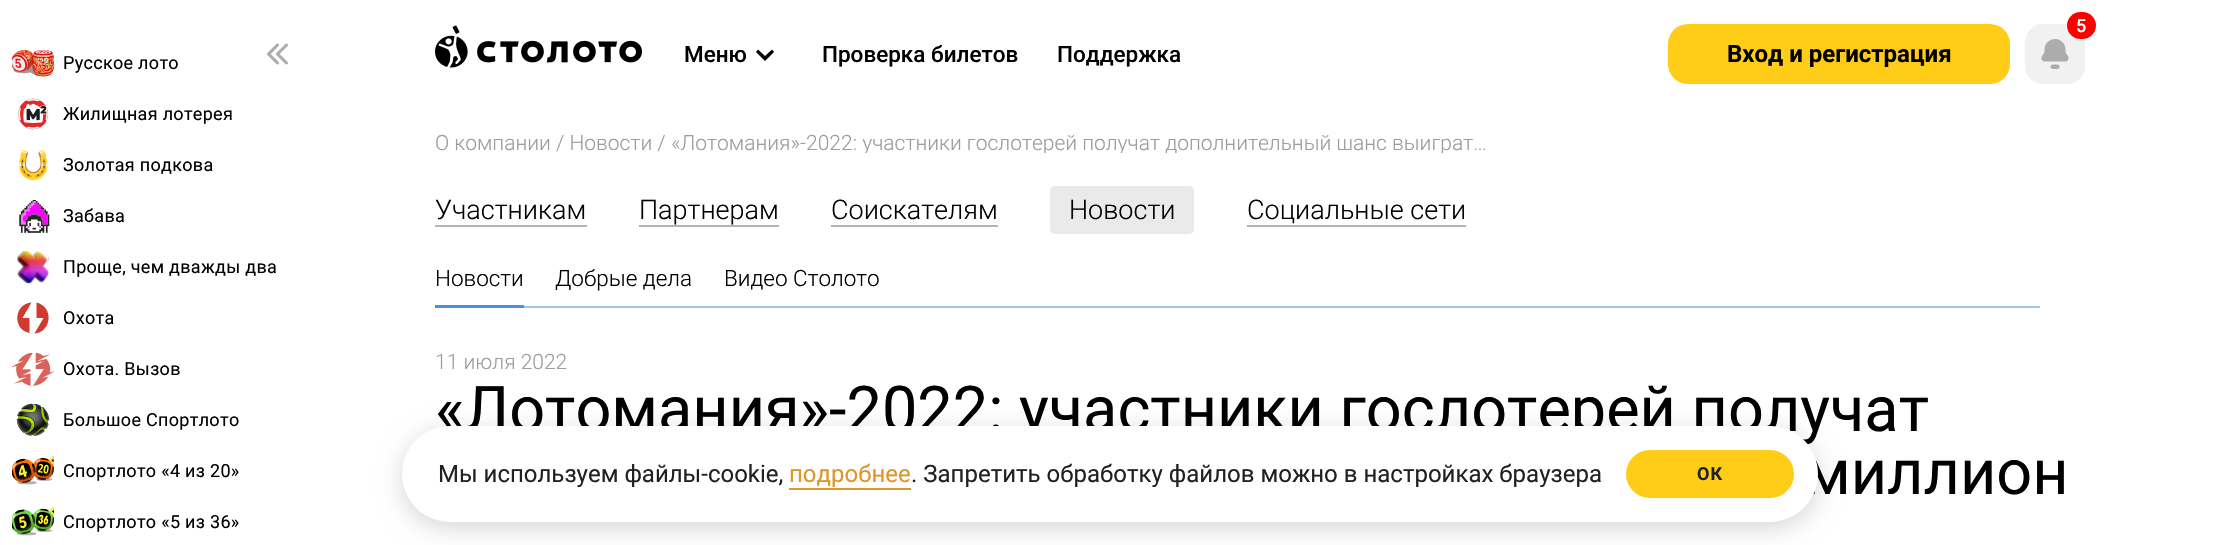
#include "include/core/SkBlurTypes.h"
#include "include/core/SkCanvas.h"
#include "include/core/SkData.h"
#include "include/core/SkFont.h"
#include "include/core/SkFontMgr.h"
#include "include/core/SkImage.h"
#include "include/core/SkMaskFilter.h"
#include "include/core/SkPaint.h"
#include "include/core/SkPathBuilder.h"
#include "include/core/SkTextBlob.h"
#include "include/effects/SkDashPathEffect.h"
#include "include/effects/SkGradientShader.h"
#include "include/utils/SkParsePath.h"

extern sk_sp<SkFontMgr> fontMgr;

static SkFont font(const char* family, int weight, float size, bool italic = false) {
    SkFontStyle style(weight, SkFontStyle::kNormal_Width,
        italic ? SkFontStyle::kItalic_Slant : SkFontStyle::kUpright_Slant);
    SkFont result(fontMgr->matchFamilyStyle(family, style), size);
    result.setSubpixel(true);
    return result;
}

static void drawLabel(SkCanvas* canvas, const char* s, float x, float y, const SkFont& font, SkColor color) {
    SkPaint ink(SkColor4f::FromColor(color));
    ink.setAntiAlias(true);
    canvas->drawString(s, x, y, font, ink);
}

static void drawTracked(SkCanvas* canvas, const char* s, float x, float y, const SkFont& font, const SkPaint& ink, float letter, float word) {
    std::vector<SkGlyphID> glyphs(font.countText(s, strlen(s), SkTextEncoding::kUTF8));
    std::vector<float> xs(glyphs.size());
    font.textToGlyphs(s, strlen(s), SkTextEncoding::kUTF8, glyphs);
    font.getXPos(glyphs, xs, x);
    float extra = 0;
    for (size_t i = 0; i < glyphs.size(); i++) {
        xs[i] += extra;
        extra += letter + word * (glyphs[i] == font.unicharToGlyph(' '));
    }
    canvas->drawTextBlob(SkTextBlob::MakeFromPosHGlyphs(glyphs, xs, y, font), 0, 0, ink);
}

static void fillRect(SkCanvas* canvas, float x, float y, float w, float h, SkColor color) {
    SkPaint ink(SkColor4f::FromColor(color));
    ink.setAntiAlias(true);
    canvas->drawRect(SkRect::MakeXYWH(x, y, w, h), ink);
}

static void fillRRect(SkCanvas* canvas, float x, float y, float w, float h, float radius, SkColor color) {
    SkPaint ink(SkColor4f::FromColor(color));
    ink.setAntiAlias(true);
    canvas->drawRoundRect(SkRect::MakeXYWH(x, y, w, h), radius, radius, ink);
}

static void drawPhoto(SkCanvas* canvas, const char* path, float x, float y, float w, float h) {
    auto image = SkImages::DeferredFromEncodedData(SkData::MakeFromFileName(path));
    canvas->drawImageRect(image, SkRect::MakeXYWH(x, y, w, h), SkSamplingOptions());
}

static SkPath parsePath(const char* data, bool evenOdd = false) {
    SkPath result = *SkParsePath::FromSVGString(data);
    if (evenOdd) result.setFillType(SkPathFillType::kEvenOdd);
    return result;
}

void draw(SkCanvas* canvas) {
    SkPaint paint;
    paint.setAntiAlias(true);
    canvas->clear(0xFFFFFFFF);
    drawPhoto(canvas, "assets/img1.png", 12, 50, 42, 27);
    SkFont font1 = font("Roboto", 400, 18);
    paint.setColor(0xFF000000);
    drawTracked(canvas, "Русское лото", 63, 69, font1, paint, 0.3f, 0);
    drawPhoto(canvas, "assets/img2.png", 18, 98, 31, 32);
    drawTracked(canvas, "Жилищная лотерея", 63, 120, font1, paint, 0.3f, 0);
    drawPhoto(canvas, "assets/img3.png", 18, 149, 30, 32);
    drawTracked(canvas, "Золотая подкова", 63, 171, font1, paint, 0.3f, 0);
    drawPhoto(canvas, "assets/img4.png", 19, 200, 31, 33);
    drawTracked(canvas, "Забава", 63, 222, font1, paint, 0.3f, 0);
    drawPhoto(canvas, "assets/img5.png", 17, 251, 32, 33);
    drawTracked(canvas, "Проще, чем дважды два", 63, 273, font1, paint, 0.3f, 0);
    paint.setColor(0xFFD03B2F);
    canvas->drawPath(parsePath("M29.5 318H22.5L31.5 302.5C14 303.5 12 329.5 29.5 333ZM36.5 302.5V318H43.5L34.5 333.5C52 332 54 306.5 36.5 302.5Z"), paint);
    paint.setColor(0xFF000000);
    drawTracked(canvas, "Охота", 63, 324, font1, paint, 0.3f, 0);
    drawPhoto(canvas, "assets/img6.png", 12, 353, 42, 33);
    drawTracked(canvas, "Охота. Вызов", 63, 375, font1, paint, 0.3f, 0);
    drawPhoto(canvas, "assets/img7.png", 16, 403, 34, 33);
    drawTracked(canvas, "Большое Спортлото", 63, 426, font1, paint, 0.3f, 0);
    drawPhoto(canvas, "assets/img8.png", 12, 455, 42, 30);
    drawTracked(canvas, "Спортлото «4 из 20»", 63, 477, font1, paint, 0.3f, 0);
    drawPhoto(canvas, "assets/img9.png", 12, 506, 42, 30);
    drawTracked(canvas, "Спортлото «5 из 36»", 63, 528, font1, paint, 0.3f, 0);
    drawPhoto(canvas, "assets/img10.png", 267, 43, 21, 22);
    drawPhoto(canvas, "assets/img11.png", 435, 25, 207, 43);
    SkFont font2 = font("Roboto", 500, 22.5f);
    drawLabel(canvas, "Меню", 684, 62, font2, 0xFF000000);
    canvas->drawPath(parsePath("M765 61L756 52L758 49.5L765 56L772 49.5L774 52Z"), paint);
    drawLabel(canvas, "Проверка билетов", 822, 62, font2, 0xFF000000);
    drawLabel(canvas, "Поддержка", 1057, 62, font2, 0xFF000000);
    fillRRect(canvas, 2025, 24, 60, 60, 18, 0xFFF1F1F1);
    fillRRect(canvas, 2067, 12, 29, 27, 13.5f, 0xFFFF0000);
    SkFont font3 = font("Roboto", 500, 18);
    drawLabel(canvas, "5", 2076, 32, font3, 0xFFFFFFFF);
    drawPhoto(canvas, "assets/img12.png", 2041, 39, 28, 30);
    fillRRect(canvas, 1668, 24, 342, 60, 20, 0xFFFFCD17);
    SkFont font4 = font("Roboto", 700, 24);
    drawLabel(canvas, "Вход и регистрация", 1727, 62, font4, 0xFF000000);
    SkFont font5 = font("Roboto", 300, 21);
    drawLabel(canvas, "О компании / Новости /", 435, 150, font5, 0xFF9C9C9C);
    canvas->save();
    canvas->clipRect(SkRect::MakeXYWH(671, 132, 825, 21));
    drawLabel(canvas, "«Лотомания»-2022: участники гослотерей получат дополнительный шанс выиграт…", 671, 150, font5, 0xFF9C9C9C);
    canvas->restore();
    SkFont font6 = font("Roboto", 300, 27);
    drawLabel(canvas, "Участникам", 435, 219, font6, 0xFF000000);
    fillRect(canvas, 435, 225, 152, 2, 0xFFB3B3B3);
    drawLabel(canvas, "Партнерам", 639, 219, font6, 0xFF000000);
    fillRect(canvas, 639, 225, 140, 2, 0xFFB3B3B3);
    drawLabel(canvas, "Соискателям", 831, 219, font6, 0xFF000000);
    fillRect(canvas, 831, 225, 167, 2, 0xFFB3B3B3);
    fillRRect(canvas, 1050, 186, 144, 48, 5, 0xFFEAEAEA);
    drawLabel(canvas, "Новости", 1069, 219, font6, 0xFF000000);
    drawLabel(canvas, "Социальные сети", 1247, 219, font6, 0xFF000000);
    fillRect(canvas, 1247, 225, 219, 2, 0xFFB3B3B3);
    fillRect(canvas, 435, 305, 89, 3, 0xFF4A90E2);
    SkFont font7 = font("Roboto", 300, 22.5f);
    drawLabel(canvas, "Новости", 435, 286, font7, 0xFF000000);
    drawLabel(canvas, "Добрые дела", 555, 286, font7, 0xFF000000);
    drawLabel(canvas, "Видео Столото", 724, 286, font7, 0xFF000000);
    fillRect(canvas, 524, 306, 1516, 2, 0xFFA0C3EC);
    drawLabel(canvas, "11 июля 2022", 435, 369, font5, 0xFF9C9C9C);
    SkFont font8 = font("Roboto", 400, 63);
    drawLabel(canvas, "«Лотомания»-2022: участники гослотерей получат", 435, 431, font8, 0xFF000000);
    drawLabel(canvas, "миллион", 1804, 494, font8, 0xFF000000);
    paint.setColor(0x29000000);
    paint.setMaskFilter(SkMaskFilter::MakeBlur(kNormal_SkBlurStyle, 12));
    canvas->drawRoundRect(SkRect::MakeXYWH(402, 432, 1416, 96), 48, 48, paint);
    paint.setMaskFilter(nullptr);
    fillRRect(canvas, 402, 426, 1416, 96, 48, 0xFFFFFFFF);
    SkFont font9 = font("Roboto", 400, 24);
    drawLabel(canvas, "Мы используем файлы-cookie,", 438, 482, font9, 0xFF212121);
    drawLabel(canvas, "подробнее", 789, 482, font9, 0xFFDE9628);
    fillRect(canvas, 789, 488, 122, 2, 0xFFDE9628);
    drawLabel(canvas, ". Запретить обработку файлов можно в настройках браузера", 911, 482, font9, 0xFF212121);
    fillRRect(canvas, 1626, 450, 168, 48, 24, 0xFFFFCD17);
    SkFont font10 = font("Roboto", 700, 18);
    paint.setColor(0xFF212121);
    drawTracked(canvas, "ОК", 1697, 480, font10, paint, 1, 0);
}
